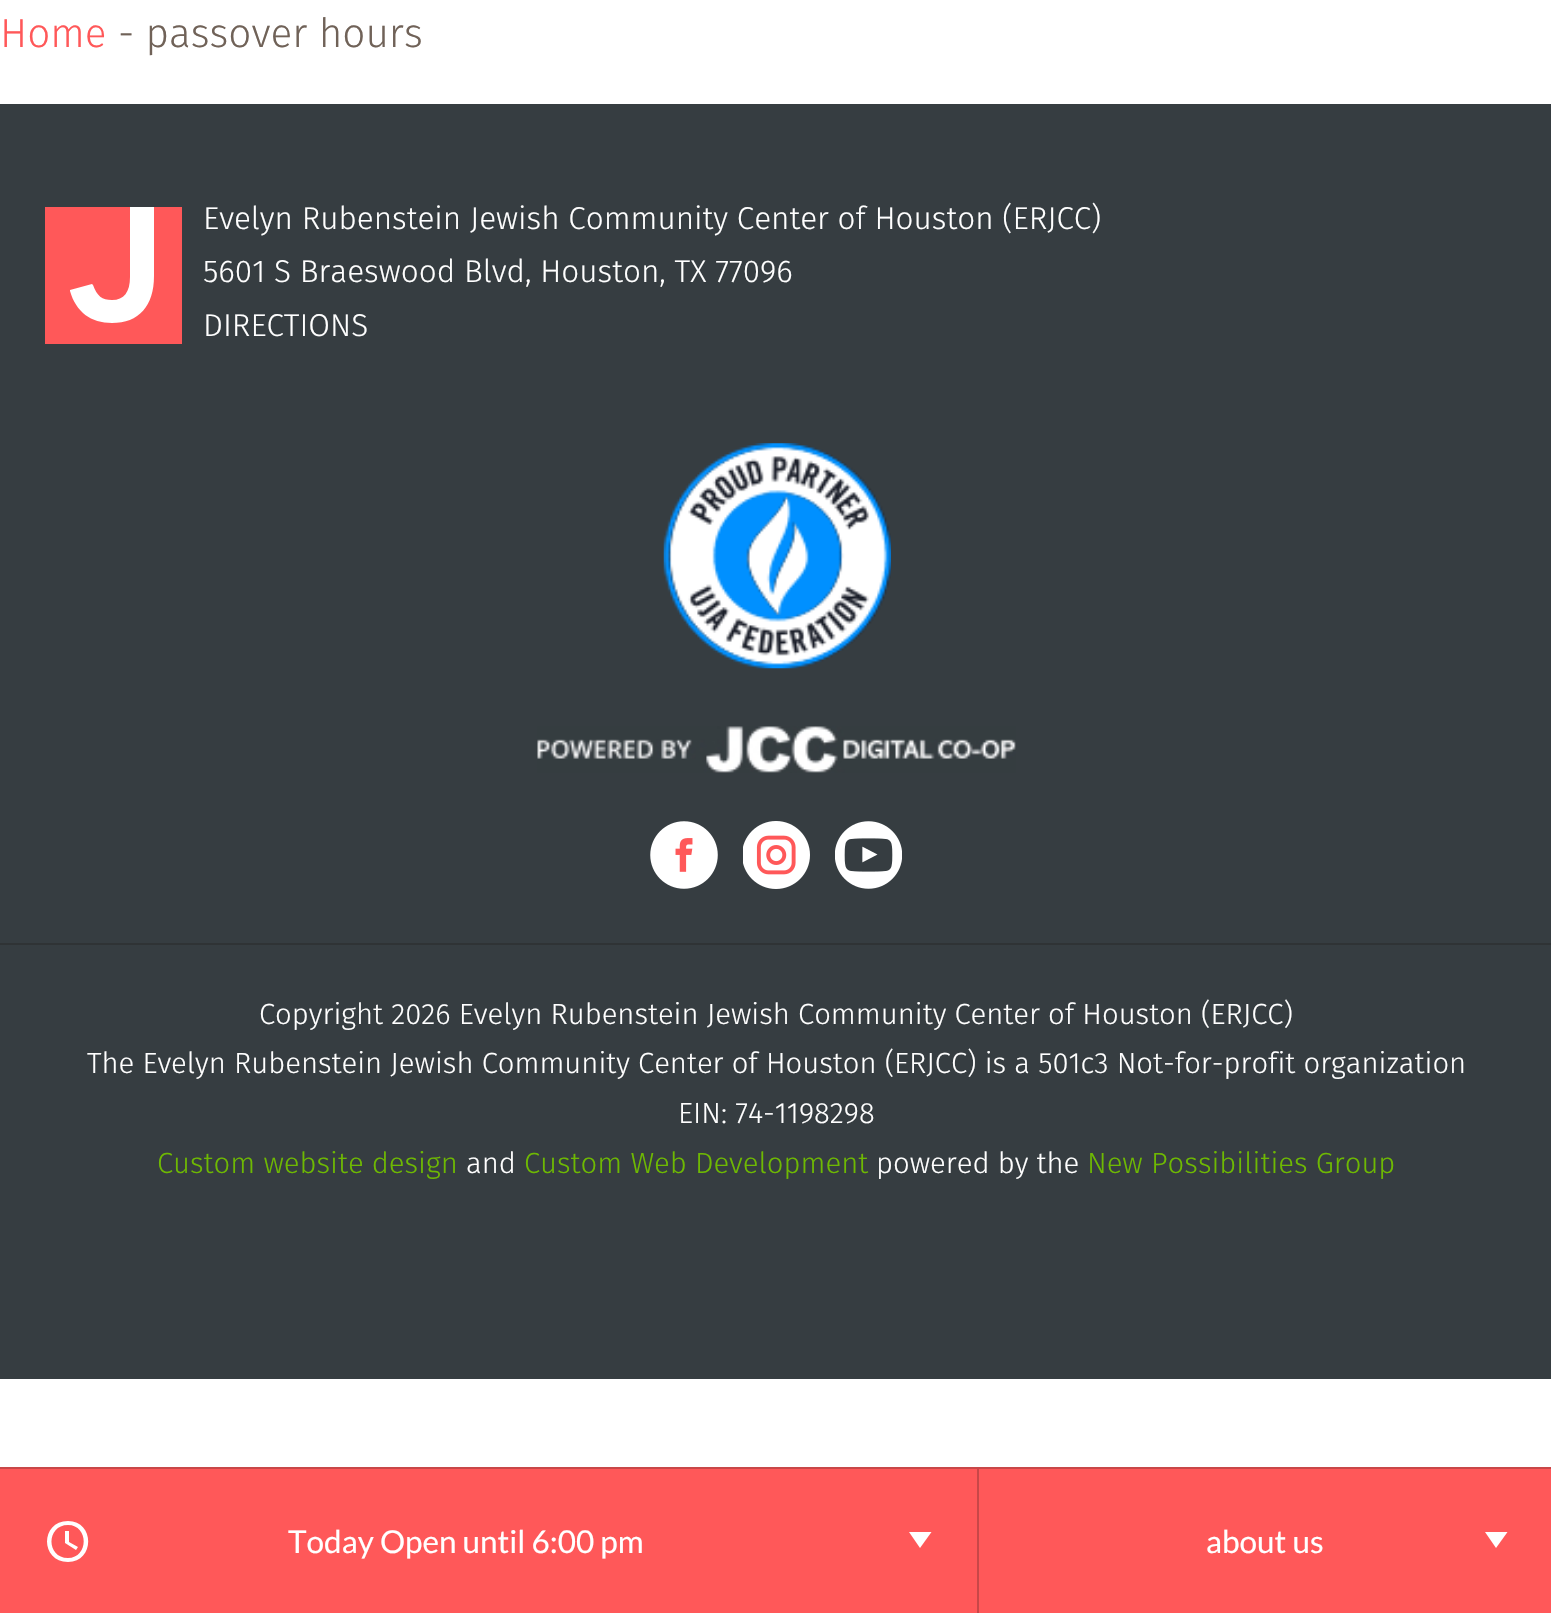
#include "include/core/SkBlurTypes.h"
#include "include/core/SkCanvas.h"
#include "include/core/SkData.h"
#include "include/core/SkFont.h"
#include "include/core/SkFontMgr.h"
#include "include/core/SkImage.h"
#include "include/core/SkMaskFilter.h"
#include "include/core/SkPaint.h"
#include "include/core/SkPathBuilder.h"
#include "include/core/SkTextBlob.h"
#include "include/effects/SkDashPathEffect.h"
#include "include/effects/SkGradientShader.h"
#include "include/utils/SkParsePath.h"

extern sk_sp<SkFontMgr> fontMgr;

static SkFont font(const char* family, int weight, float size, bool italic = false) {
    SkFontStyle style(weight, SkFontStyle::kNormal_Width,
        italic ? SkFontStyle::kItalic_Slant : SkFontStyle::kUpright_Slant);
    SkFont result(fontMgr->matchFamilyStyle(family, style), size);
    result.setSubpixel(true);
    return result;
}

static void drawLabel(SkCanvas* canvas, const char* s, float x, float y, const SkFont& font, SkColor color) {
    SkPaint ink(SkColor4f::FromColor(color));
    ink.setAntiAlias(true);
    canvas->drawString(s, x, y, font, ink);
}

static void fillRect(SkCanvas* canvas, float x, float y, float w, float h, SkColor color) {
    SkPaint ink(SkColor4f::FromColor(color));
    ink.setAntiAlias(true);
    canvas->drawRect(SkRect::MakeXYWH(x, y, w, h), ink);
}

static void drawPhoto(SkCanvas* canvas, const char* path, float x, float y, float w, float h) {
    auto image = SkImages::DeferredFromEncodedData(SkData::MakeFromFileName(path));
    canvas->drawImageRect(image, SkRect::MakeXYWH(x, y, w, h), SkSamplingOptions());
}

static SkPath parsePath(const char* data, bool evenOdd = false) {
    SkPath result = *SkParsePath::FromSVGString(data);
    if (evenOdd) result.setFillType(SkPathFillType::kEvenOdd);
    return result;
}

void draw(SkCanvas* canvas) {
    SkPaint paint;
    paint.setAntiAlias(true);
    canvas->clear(0xFFFFFFFF);
    SkFont font1 = font("Fira Sans", 300, 40.5f);
    drawLabel(canvas, "Home", 0, 47, font1, 0xFFFF5859);
    drawLabel(canvas, "- passover hours", 118, 47, font1, 0xFF706258);
    fillRect(canvas, 0, 104, 1551, 1275, 0xFF363D41);
    fillRect(canvas, 70, 207, 84, 116, 0xFFFFFFFF);
    paint.setColor(0xFFFF5859);
    canvas->drawPath(parsePath("M154 207V276C154 306 139 323 112 323C91 323 76 312 70 291V290L92 284L93 285C97 296 102 300 112 300C124 300 130 292 130 277V207H45V344H182V207Z"), paint);
    SkFont font2 = font("Fira Sans", 300, 31.5f);
    drawLabel(canvas, "Evelyn Rubenstein Jewish Community Center of Houston (ERJCC)", 203, 229, font2, 0xFFFFFFFF);
    drawLabel(canvas, "5601 S Braeswood Blvd, Houston, TX 77096", 203, 282, font2, 0xFFFFFFFF);
    drawLabel(canvas, "DIRECTIONS", 203, 336, font2, 0xFFFFFFFF);
    drawPhoto(canvas, "assets/img1.png", 663, 443, 228, 226);
    drawPhoto(canvas, "assets/img2.png", 537, 726, 479, 47);
    drawPhoto(canvas, "assets/img3.png", 650, 821, 68, 68);
    drawPhoto(canvas, "assets/img4.png", 743, 821, 67, 68);
    drawPhoto(canvas, "assets/img5.png", 835, 821, 67, 68);
    fillRect(canvas, 0, 943, 1551, 2, 0xFF2F3335);
    SkFont font3 = font("Fira Sans", 300, 29.25f);
    drawLabel(canvas, "Copyright 2026 Evelyn Rubenstein Jewish Community Center of Houston (ERJCC)", 259, 1024, font3, 0xFFFFFFFF);
    drawLabel(canvas, "The Evelyn Rubenstein Jewish Community Center of Houston (ERJCC) is a 501c3 Not-for-profit organization", 87, 1073, font3, 0xFFFFFFFF);
    drawLabel(canvas, "EIN: 74-1198298", 678, 1123, font3, 0xFFFFFFFF);
    drawLabel(canvas, "Custom website design", 157, 1173, font3, 0xFF6EB902);
    drawLabel(canvas, "and", 466, 1173, font3, 0xFFFFFFFF);
    drawLabel(canvas, "Custom Web Development", 524, 1173, font3, 0xFF6EB902);
    drawLabel(canvas, "powered by the", 876, 1173, font3, 0xFFFFFFFF);
    drawLabel(canvas, "New Possibilities Group", 1087, 1173, font3, 0xFF6EB902);
    fillRect(canvas, 0, 1469, 1551, 144, 0xFFFF5859);
    fillRect(canvas, 0, 1467, 1551, 2, 0xFFC84748);
    fillRect(canvas, 977, 1469, 2, 144, 0xFFC84748);
    paint.setColor(0xFFFFFFFF);
    canvas->drawPath(parsePath("M68 1521C40 1521 40 1562 68 1562C95 1562 95 1521 68 1521ZM68 1558C46 1558 46 1525 68 1525C89 1525 89 1558 68 1558ZM69 1531H65V1543L76 1550L78 1547L69 1542Z"), paint);
    SkFont font4 = font("Lato", 400, 31.5f);
    drawLabel(canvas, "Today Open until 6:00 pm", 288, 1553, font4, 0xFFFFFFFF);
    canvas->drawPath(parsePath("M909 1532H931.5L920 1548Z"), paint);
    drawLabel(canvas, "about us", 1206, 1553, font4, 0xFFFFFFFF);
    canvas->drawPath(parsePath("M1485 1532H1507.5L1496 1548Z"), paint);
}
